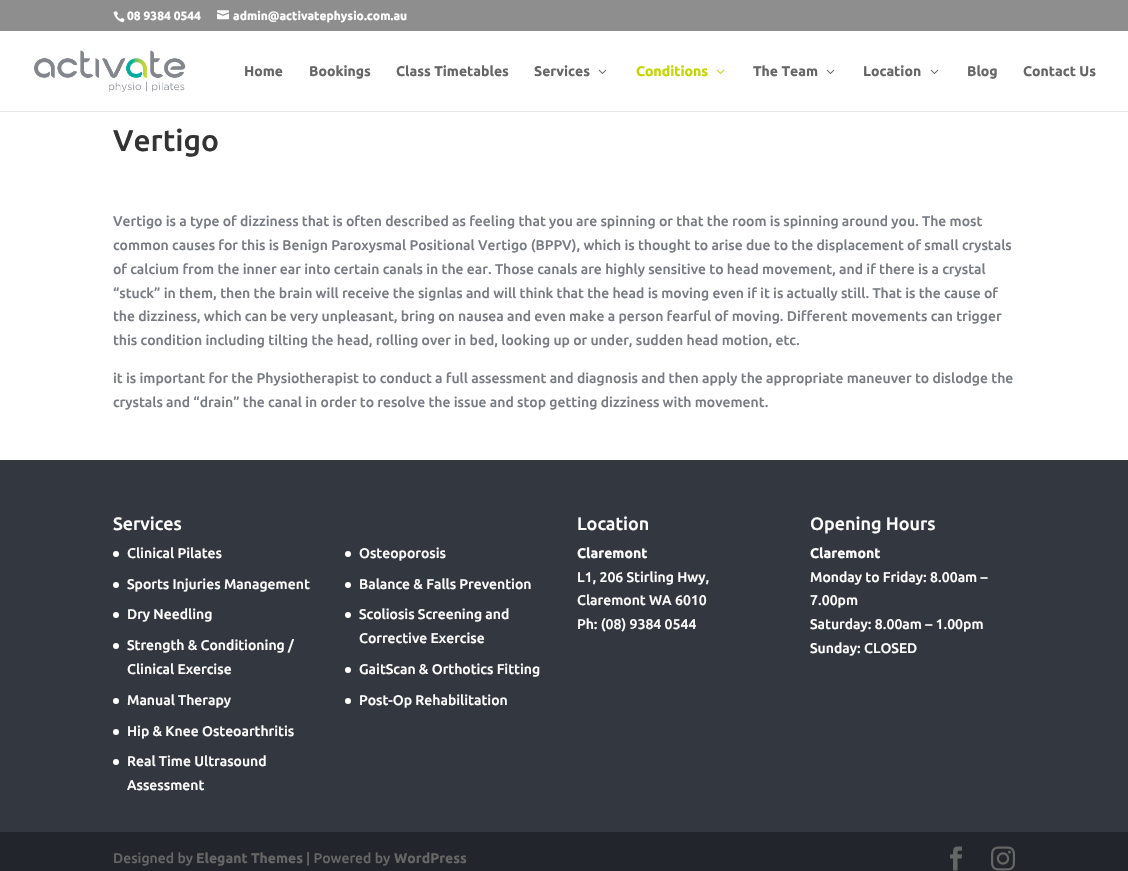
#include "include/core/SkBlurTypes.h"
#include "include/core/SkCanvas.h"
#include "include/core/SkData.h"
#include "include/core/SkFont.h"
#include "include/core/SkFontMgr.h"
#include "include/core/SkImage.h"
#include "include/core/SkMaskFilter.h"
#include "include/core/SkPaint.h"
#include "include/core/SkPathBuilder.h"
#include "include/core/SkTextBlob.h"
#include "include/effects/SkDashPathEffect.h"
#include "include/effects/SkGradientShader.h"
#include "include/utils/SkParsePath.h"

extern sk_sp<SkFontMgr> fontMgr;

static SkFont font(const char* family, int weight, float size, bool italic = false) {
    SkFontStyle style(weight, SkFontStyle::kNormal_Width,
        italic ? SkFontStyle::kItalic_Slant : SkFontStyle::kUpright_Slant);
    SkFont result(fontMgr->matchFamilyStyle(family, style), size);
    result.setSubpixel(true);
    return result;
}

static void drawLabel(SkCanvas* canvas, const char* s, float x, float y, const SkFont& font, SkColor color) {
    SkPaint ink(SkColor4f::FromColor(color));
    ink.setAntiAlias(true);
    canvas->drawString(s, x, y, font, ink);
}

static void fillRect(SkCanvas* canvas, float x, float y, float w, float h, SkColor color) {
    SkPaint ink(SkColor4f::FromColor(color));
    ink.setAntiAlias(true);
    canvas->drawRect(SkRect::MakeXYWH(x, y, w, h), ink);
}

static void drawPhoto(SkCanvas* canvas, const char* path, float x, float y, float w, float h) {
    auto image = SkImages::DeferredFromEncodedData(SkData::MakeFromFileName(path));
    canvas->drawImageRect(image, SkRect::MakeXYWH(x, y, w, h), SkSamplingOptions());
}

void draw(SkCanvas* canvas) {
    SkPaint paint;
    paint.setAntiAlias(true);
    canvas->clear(0xFFFFFFFF);
    fillRect(canvas, 0, 0, 1128, 31, 0xFF8E8E8E);
    drawPhoto(canvas, "assets/img1.png", 113, 11, 12, 12);
    SkFont font1 = font("Ubuntu", 700, 12);
    drawLabel(canvas, "08 9384 0544", 127, 20, font1, 0xFFFFFFFF);
    drawPhoto(canvas, "assets/img2.png", 217, 10, 12, 10);
    drawLabel(canvas, "admin@activatephysio.com.au", 233, 20, font1, 0xFFFFFFFF);
    fillRect(canvas, 0, 111, 1128, 1, 0xFFE6E6E6);
    drawPhoto(canvas, "assets/img3.png", 34, 50, 152, 42);
    SkFont font2 = font("Ubuntu", 700, 14);
    drawLabel(canvas, "Home", 244, 76, font2, 0xFF666666);
    drawLabel(canvas, "Bookings", 309, 76, font2, 0xFF666666);
    drawLabel(canvas, "Class Timetables", 396, 76, font2, 0xFF666666);
    drawLabel(canvas, "Services", 534, 76, font2, 0xFF666666);
    drawPhoto(canvas, "assets/img4.png", 598, 69, 9, 5);
    drawLabel(canvas, "Conditions", 636, 76, font2, 0xFFC4D600);
    drawPhoto(canvas, "assets/img5.png", 716, 69, 9, 5);
    drawLabel(canvas, "The Team", 753, 76, font2, 0xFF666666);
    drawPhoto(canvas, "assets/img4.png", 826, 69, 9, 5);
    drawLabel(canvas, "Location", 863, 76, font2, 0xFF666666);
    drawPhoto(canvas, "assets/img4.png", 930, 69, 9, 5);
    drawLabel(canvas, "Blog", 967, 76, font2, 0xFF666666);
    drawLabel(canvas, "Contact Us", 1023, 76, font2, 0xFF666666);
    SkFont font3 = font("Ubuntu", 500, 30);
    drawLabel(canvas, "Vertigo", 113, 151, font3, 0xFF333333);
    SkFont font4 = font("Ubuntu", 500, 14);
    drawLabel(canvas, "Vertigo is a type of dizziness that is often described as feeling that you are spinning or that the room is spinning around you. The most", 113, 226, font4, 0xFF787C82);
    drawLabel(canvas, "common causes for this is Benign Paroxysmal Positional Vertigo (BPPV), which is thought to arise due to the displacement of small crystals", 113, 250, font4, 0xFF787C82);
    drawLabel(canvas, "of calcium from the inner ear into certain canals in the ear. Those canals are highly sensitive to head movement, and if there is a crystal", 113, 274, font4, 0xFF787C82);
    drawLabel(canvas, "“stuck” in them, then the brain will receive the signlas and will think that the head is moving even if it is actually still. That is the cause of", 113, 298, font4, 0xFF787C82);
    drawLabel(canvas, "the dizziness, which can be very unpleasant, bring on nausea and even make a person fearful of moving. Different movements can trigger", 113, 321, font4, 0xFF787C82);
    drawLabel(canvas, "this condition including tilting the head, rolling over in bed, looking up or under, sudden head motion, etc.", 113, 345, font4, 0xFF787C82);
    drawLabel(canvas, "it is important for the Physiotherapist to conduct a full assessment and diagnosis and then apply the appropriate maneuver to dislodge the", 113, 383, font4, 0xFF787C82);
    drawLabel(canvas, "crystals and “drain” the canal in order to resolve the issue and stop getting dizziness with movement.", 113, 407, font4, 0xFF787C82);
    fillRect(canvas, 0, 460, 1128, 372, 0xFF333740);
    SkFont font5 = font("Ubuntu", 500, 18);
    drawLabel(canvas, "Services", 113, 530, font5, 0xFFFFFFFF);
    paint.setColor(0xFFFFFFFF);
    canvas->drawCircle(116, 554, 3, paint);
    drawLabel(canvas, "Clinical Pilates", 127, 558, font4, 0xFFFFFFFF);
    canvas->drawCircle(116, 585, 3, paint);
    drawLabel(canvas, "Sports Injuries Management", 127, 589, font4, 0xFFFFFFFF);
    canvas->drawCircle(116, 615, 3, paint);
    drawLabel(canvas, "Dry Needling", 127, 619, font4, 0xFFFFFFFF);
    canvas->drawCircle(116, 646, 3, paint);
    drawLabel(canvas, "Strength & Conditioning /", 127, 650, font4, 0xFFFFFFFF);
    drawLabel(canvas, "Clinical Exercise", 127, 674, font4, 0xFFFFFFFF);
    canvas->drawCircle(116, 701, 3, paint);
    drawLabel(canvas, "Manual Therapy", 127, 705, font4, 0xFFFFFFFF);
    canvas->drawCircle(116, 732, 3, paint);
    drawLabel(canvas, "Hip & Knee Osteoarthritis", 127, 736, font4, 0xFFFFFFFF);
    canvas->drawCircle(116, 762, 3, paint);
    drawLabel(canvas, "Real Time Ultrasound", 127, 766, font4, 0xFFFFFFFF);
    drawLabel(canvas, "Assessment", 127, 790, font4, 0xFFFFFFFF);
    canvas->drawCircle(348, 554, 3, paint);
    drawLabel(canvas, "Osteoporosis", 359, 558, font4, 0xFFFFFFFF);
    canvas->drawCircle(348, 585, 3, paint);
    drawLabel(canvas, "Balance & Falls Prevention", 359, 589, font4, 0xFFFFFFFF);
    canvas->drawCircle(348, 615, 3, paint);
    drawLabel(canvas, "Scoliosis Screening and", 359, 619, font4, 0xFFFFFFFF);
    drawLabel(canvas, "Corrective Exercise", 359, 643, font4, 0xFFFFFFFF);
    canvas->drawCircle(348, 670, 3, paint);
    drawLabel(canvas, "GaitScan & Orthotics Fitting", 359, 674, font4, 0xFFFFFFFF);
    canvas->drawCircle(348, 701, 3, paint);
    drawLabel(canvas, "Post-Op Rehabilitation", 359, 705, font4, 0xFFFFFFFF);
    drawLabel(canvas, "Location", 577, 530, font5, 0xFFFFFFFF);
    drawLabel(canvas, "Claremont", 577, 558, font2, 0xFFFFFFFF);
    drawLabel(canvas, "L1, 206 Stirling Hwy,", 577, 582, font4, 0xFFFFFFFF);
    drawLabel(canvas, "Claremont WA 6010", 577, 605, font4, 0xFFFFFFFF);
    drawLabel(canvas, "Ph: (08) 9384 0544", 577, 629, font4, 0xFFFFFFFF);
    drawLabel(canvas, "Opening Hours", 810, 530, font5, 0xFFFFFFFF);
    drawLabel(canvas, "Claremont", 810, 558, font2, 0xFFFFFFFF);
    drawLabel(canvas, "Monday to Friday: 8.00am –", 810, 582, font4, 0xFFFFFFFF);
    drawLabel(canvas, "7.00pm", 810, 605, font4, 0xFFFFFFFF);
    drawLabel(canvas, "Saturday: 8.00am – 1.00pm", 810, 629, font4, 0xFFFFFFFF);
    drawLabel(canvas, "Sunday: CLOSED", 810, 653, font4, 0xFFFFFFFF);
    fillRect(canvas, 0, 832, 1128, 39, 0xFF23252C);
    drawLabel(canvas, "Designed by", 113, 863, font4, 0xFF666666);
    drawLabel(canvas, "Elegant Themes", 196, 863, font2, 0xFF666666);
    drawLabel(canvas, "| Powered by", 306, 863, font4, 0xFF666666);
    drawLabel(canvas, "WordPress", 394, 863, font2, 0xFF666666);
    drawPhoto(canvas, "assets/img6.png", 950, 846, 12, 25);
    drawPhoto(canvas, "assets/img7.png", 991, 846, 24, 25);
}
